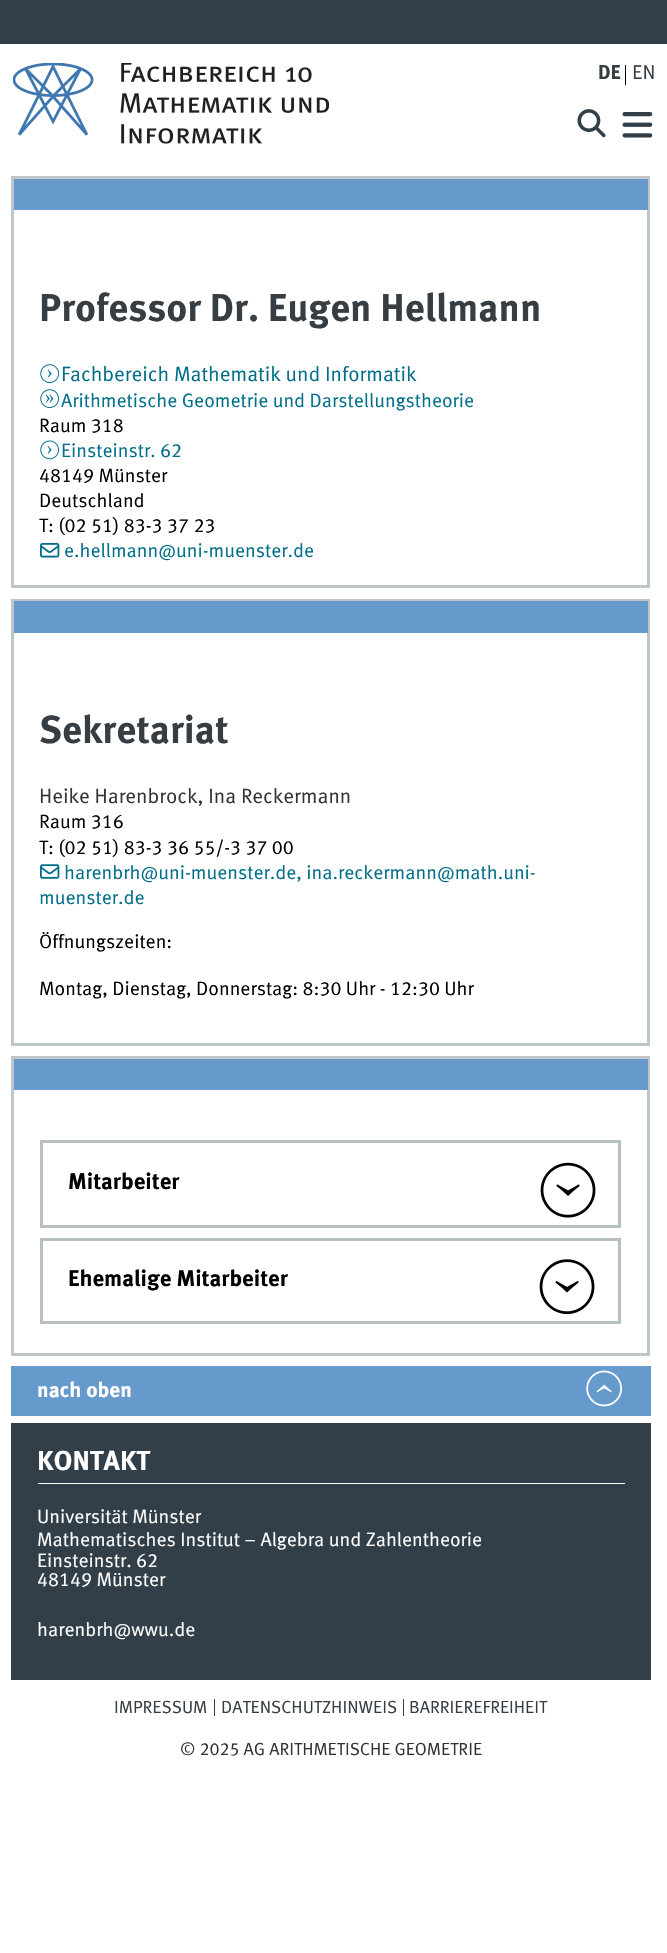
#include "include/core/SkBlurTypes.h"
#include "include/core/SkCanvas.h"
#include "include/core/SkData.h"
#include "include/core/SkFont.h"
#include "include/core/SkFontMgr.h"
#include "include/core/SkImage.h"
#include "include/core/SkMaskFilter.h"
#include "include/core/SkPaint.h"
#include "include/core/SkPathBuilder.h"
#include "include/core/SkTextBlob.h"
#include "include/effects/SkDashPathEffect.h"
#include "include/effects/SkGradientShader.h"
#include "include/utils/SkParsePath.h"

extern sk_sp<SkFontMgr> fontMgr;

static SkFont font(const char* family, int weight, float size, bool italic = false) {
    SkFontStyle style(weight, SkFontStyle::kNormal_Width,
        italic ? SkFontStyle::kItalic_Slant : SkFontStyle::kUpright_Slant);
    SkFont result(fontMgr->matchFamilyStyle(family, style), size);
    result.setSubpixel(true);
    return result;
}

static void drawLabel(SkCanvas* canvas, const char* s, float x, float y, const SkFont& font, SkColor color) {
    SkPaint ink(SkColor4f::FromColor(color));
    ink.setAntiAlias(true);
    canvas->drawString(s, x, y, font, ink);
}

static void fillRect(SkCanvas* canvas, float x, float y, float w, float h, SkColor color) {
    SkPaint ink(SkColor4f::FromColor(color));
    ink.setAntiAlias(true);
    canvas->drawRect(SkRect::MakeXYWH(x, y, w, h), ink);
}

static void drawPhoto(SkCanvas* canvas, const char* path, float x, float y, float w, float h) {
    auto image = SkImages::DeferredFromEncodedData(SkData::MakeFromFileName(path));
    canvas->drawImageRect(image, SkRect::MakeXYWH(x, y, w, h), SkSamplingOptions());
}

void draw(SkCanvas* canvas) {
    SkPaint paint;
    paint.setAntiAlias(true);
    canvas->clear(0xFFFFFFFF);
    fillRect(canvas, 0, 0, 667, 44, 0xFF333F48);
    drawPhoto(canvas, "assets/img1.png", 13, 63, 316, 81);
    SkFont font1 = font("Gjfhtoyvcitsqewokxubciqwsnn", 700, 20);
    drawLabel(canvas, "DE", 598, 79, font1, 0xFF363D43);
    fillRect(canvas, 625, 65, 1, 20, 0xFF000000);
    SkFont font2 = font("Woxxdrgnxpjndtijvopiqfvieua", 400, 20);
    drawLabel(canvas, "EN", 632, 79, font2, 0xFF363D43);
    drawPhoto(canvas, "assets/img2.png", 577, 109, 29, 29);
    drawPhoto(canvas, "assets/img3.png", 622, 112, 31, 26);
    paint.setStroke(true);
    paint.setStrokeWidth(3);
    paint.setColor(0xFFBEC6C8);
    canvas->drawRect(SkRect::MakeXYWH(12.5f, 177.5f, 636, 409), paint);
    fillRect(canvas, 14, 179, 634, 31, 0xFF6699CC);
    SkFont font3 = font("Gjfhtoyvcitsqewokxubciqwsnn", 700, 38.7f);
    drawLabel(canvas, "Professor Dr. Eugen Hellmann", 39, 321, font3, 0xFF363D43);
    drawPhoto(canvas, "assets/img4.png", 40, 364, 19, 19);
    SkFont font4 = font("Woxxdrgnxpjndtijvopiqfvieua", 400, 20.6f);
    drawLabel(canvas, "Fachbereich Mathematik und Informatik", 61, 381, font4, 0xFF006E89);
    drawPhoto(canvas, "assets/img5.png", 40, 389, 19, 19);
    SkFont font5 = font("Woxxdrgnxpjndtijvopiqfvieua", 400, 19.3f);
    drawLabel(canvas, "Arithmetische Geometrie und Darstellungstheorie", 61, 407, font5, 0xFF006E89);
    drawLabel(canvas, "Raum 318", 39, 432, font5, 0xFF000000);
    drawPhoto(canvas, "assets/img6.png", 40, 440, 19, 20);
    drawLabel(canvas, "Einsteinstr. 62", 61, 457, font5, 0xFF006E89);
    drawLabel(canvas, "48149 Münster", 39, 482, font5, 0xFF000000);
    drawLabel(canvas, "Deutschland", 39, 507, font5, 0xFF000000);
    drawLabel(canvas, "T: (02 51) 83-3 37 23", 39, 532, font5, 0xFF000000);
    drawPhoto(canvas, "assets/img7.png", 40, 543, 20, 15);
    drawLabel(canvas, "e.hellmann@uni-muenster.de", 64, 557, font5, 0xFF006E89);
    canvas->drawRect(SkRect::MakeXYWH(12.5f, 600.5f, 636, 444), paint);
    fillRect(canvas, 14, 601, 634, 32, 0xFF6699CC);
    drawLabel(canvas, "Sekretariat", 39, 743, font3, 0xFF363D43);
    drawLabel(canvas, "Heike Harenbrock, Ina Reckermann", 39, 803, font4, 0xFF333333);
    drawLabel(canvas, "Raum 316", 39, 828, font5, 0xFF000000);
    drawLabel(canvas, "T: (02 51) 83-3 36 55/-3 37 00", 39, 854, font5, 0xFF000000);
    drawPhoto(canvas, "assets/img8.png", 40, 864, 20, 15);
    drawLabel(canvas, "harenbrh@uni-muenster.de, ina.reckermann@math.uni-", 64, 879, font5, 0xFF006E89);
    drawLabel(canvas, "muenster.de", 39, 904, font5, 0xFF006E89);
    drawLabel(canvas, "Öffnungszeiten:", 39, 948, font5, 0xFF000000);
    drawLabel(canvas, "Montag, Dienstag, Donnerstag: 8:30 Uhr - 12:30 Uhr", 39, 995, font5, 0xFF000000);
    canvas->drawRect(SkRect::MakeXYWH(12.5f, 1057.5f, 636, 297), paint);
    fillRect(canvas, 14, 1059, 634, 31, 0xFF6699CC);
    paint.setColor(0xFFB6C0C1);
    canvas->drawRect(SkRect::MakeXYWH(41.5f, 1141.5f, 578, 85), paint);
    SkFont font6 = font("Gjfhtoyvcitsqewokxubciqwsnn", 700, 22.6f);
    drawLabel(canvas, "Mitarbeiter", 68, 1189, font6, 0xFF000000);
    drawPhoto(canvas, "assets/img9.png", 540, 1162, 56, 56);
    canvas->drawRect(SkRect::MakeXYWH(41.5f, 1239.5f, 578, 83), paint);
    drawLabel(canvas, "Ehemalige Mitarbeiter", 68, 1286, font6, 0xFF000000);
    drawPhoto(canvas, "assets/img10.png", 539, 1259, 56, 56);
    fillRect(canvas, 11, 1366, 640, 50, 0xFF6699CC);
    SkFont font7 = font("Gjfhtoyvcitsqewokxubciqwsnn", 700, 21);
    drawLabel(canvas, "nach oben", 37, 1397, font7, 0xFFFFFFFF);
    drawPhoto(canvas, "assets/img11.png", 586, 1370, 36, 37);
    fillRect(canvas, 11, 1423, 640, 257, 0xFF333F48);
    fillRect(canvas, 38, 1483, 587, 1, 0xFFFFFFFF);
    SkFont font8 = font("Gjfhtoyvcitsqewokxubciqwsnn", 700, 27.5f);
    drawLabel(canvas, "KONTAKT", 37, 1470, font8, 0xFFFFFFFF);
    drawLabel(canvas, "Universität Münster", 37, 1523, font5, 0xFFFFFFFF);
    drawLabel(canvas, "Mathematisches Institut – Algebra und Zahlentheorie", 37, 1546, font5, 0xFFFFFFFF);
    drawLabel(canvas, "Einsteinstr. 62", 37, 1567, font5, 0xFFFFFFFF);
    drawLabel(canvas, "48149 Münster", 37, 1586, font5, 0xFFFFFFFF);
    drawLabel(canvas, "harenbrh@wwu.de", 37, 1636, font5, 0xFFFFFFFF);
    SkFont font9 = font("Woxxdrgnxpjndtijvopiqfvieua", 400, 17.6f);
    drawLabel(canvas, "IMPRESSUM", 114, 1713, font9, 0xFF363D43);
    fillRect(canvas, 214, 1699, 1, 17, 0xFF333F48);
    drawLabel(canvas, "DATENSCHUTZHINWEIS", 221, 1713, font9, 0xFF363D43);
    fillRect(canvas, 403, 1699, 1, 17, 0xFF333F48);
    drawLabel(canvas, "BARRIEREFREIHEIT", 409, 1713, font9, 0xFF363D43);
    drawLabel(canvas, "© 2025 AG ARITHMETISCHE GEOMETRIE", 180, 1755, font9, 0xFF333333);
}
